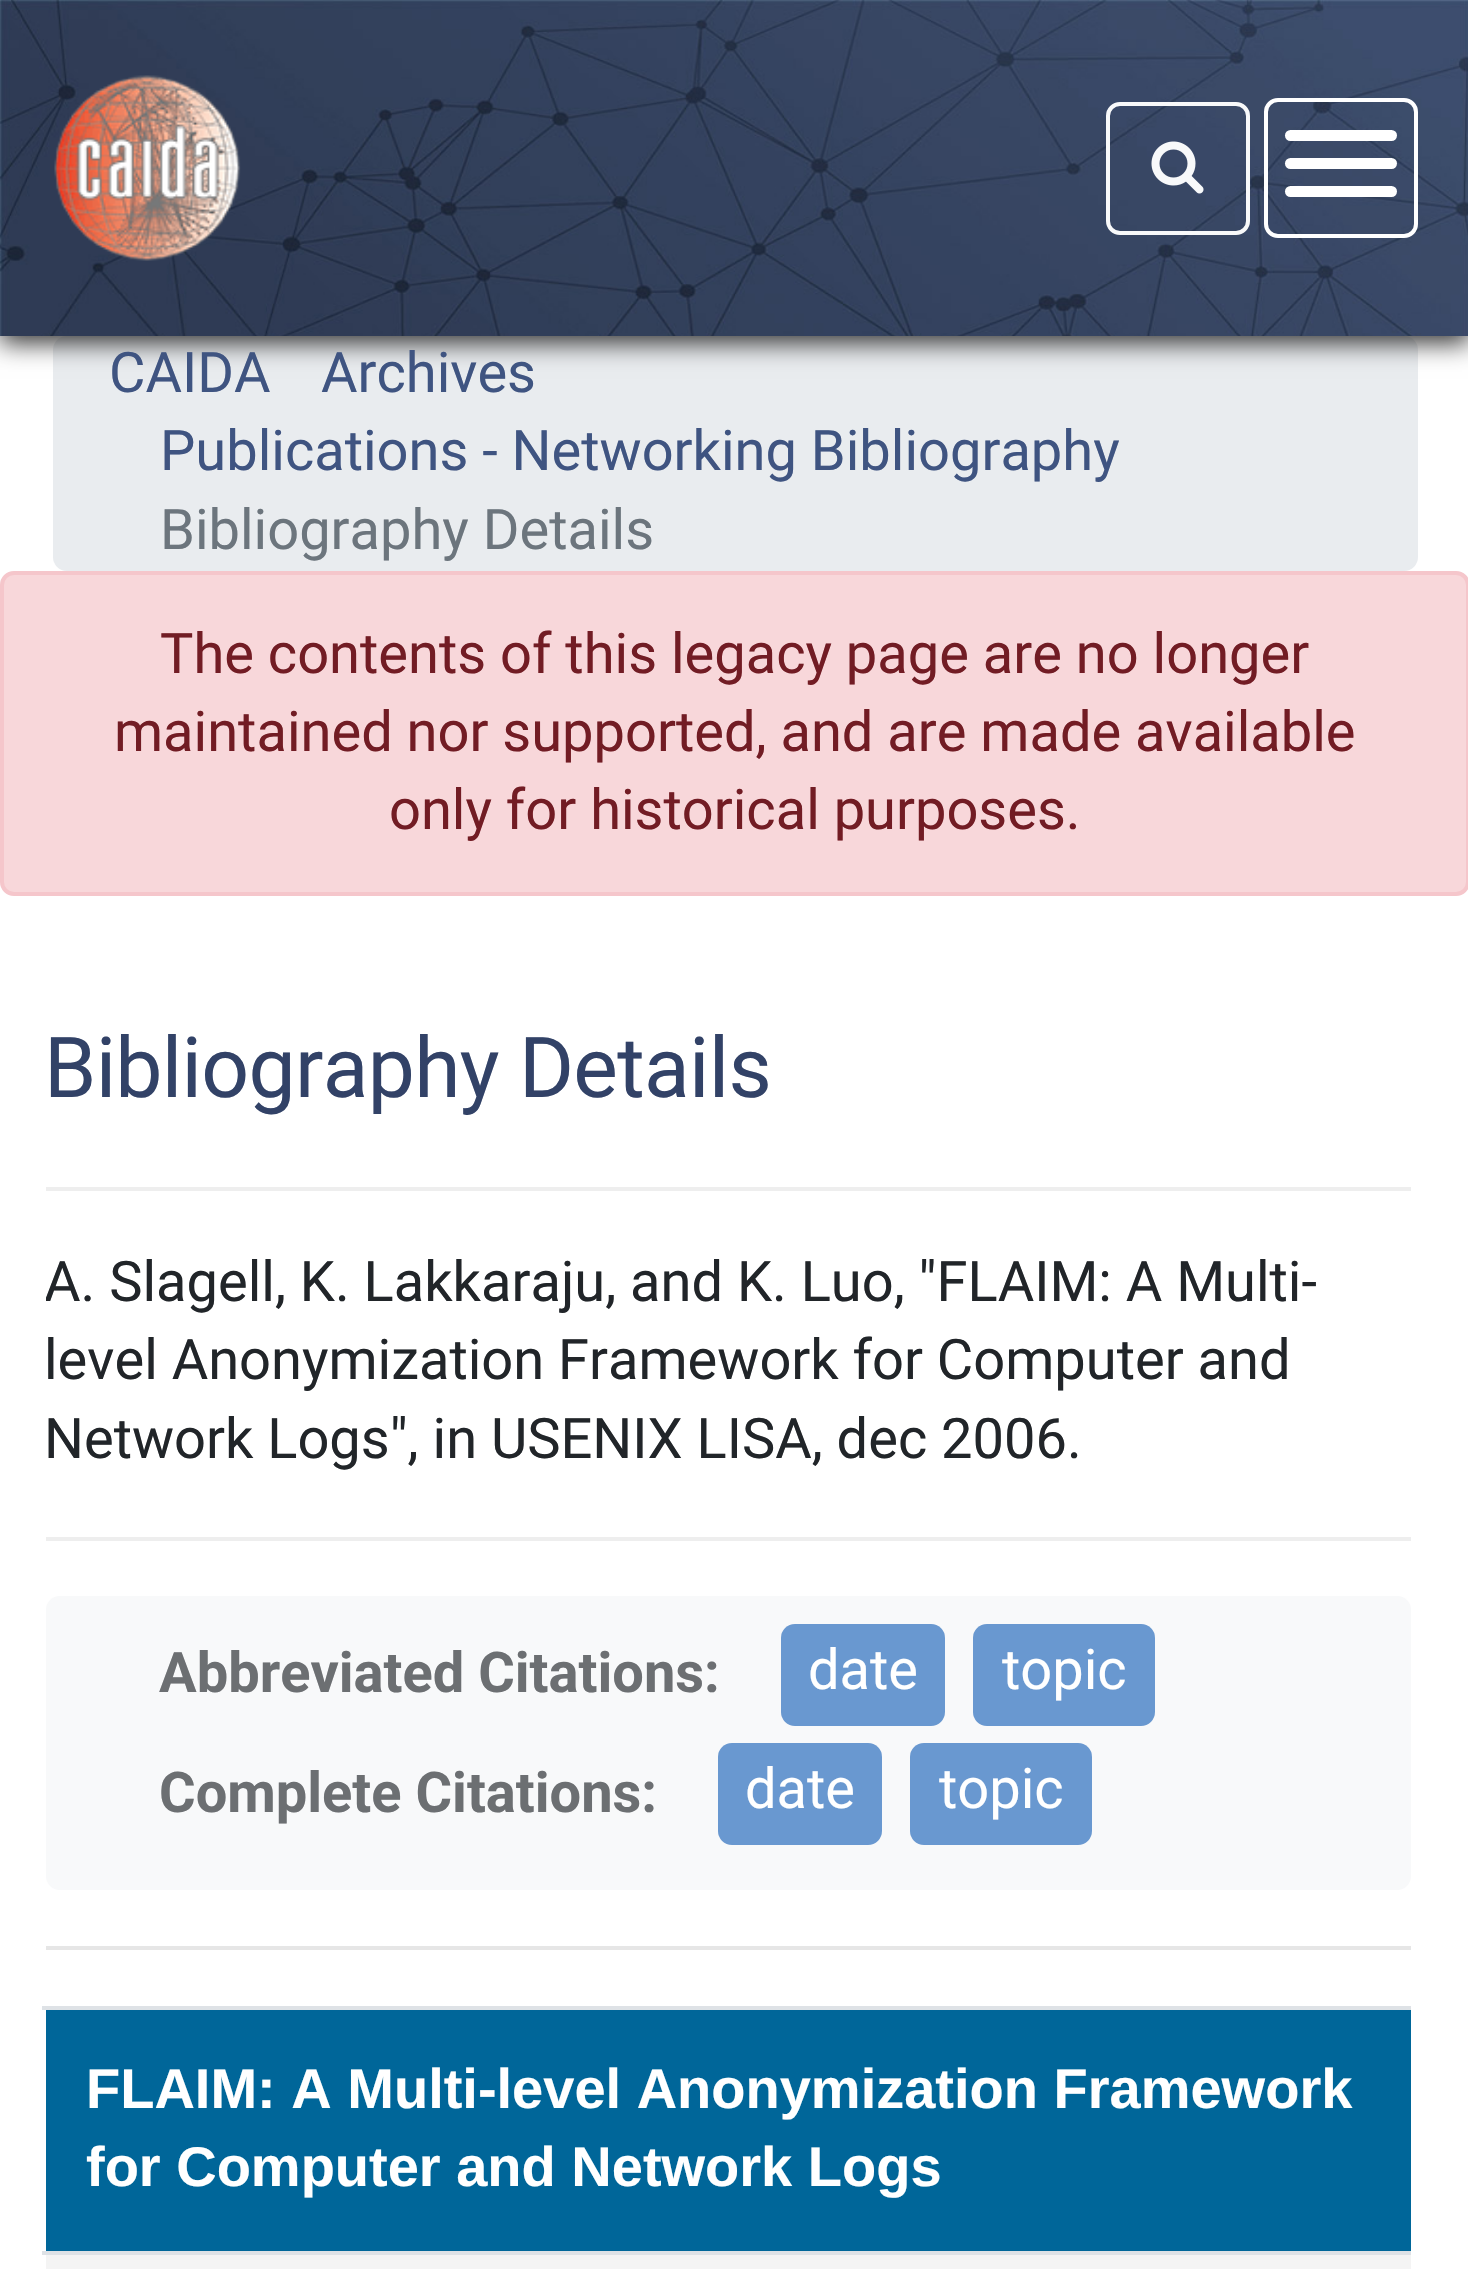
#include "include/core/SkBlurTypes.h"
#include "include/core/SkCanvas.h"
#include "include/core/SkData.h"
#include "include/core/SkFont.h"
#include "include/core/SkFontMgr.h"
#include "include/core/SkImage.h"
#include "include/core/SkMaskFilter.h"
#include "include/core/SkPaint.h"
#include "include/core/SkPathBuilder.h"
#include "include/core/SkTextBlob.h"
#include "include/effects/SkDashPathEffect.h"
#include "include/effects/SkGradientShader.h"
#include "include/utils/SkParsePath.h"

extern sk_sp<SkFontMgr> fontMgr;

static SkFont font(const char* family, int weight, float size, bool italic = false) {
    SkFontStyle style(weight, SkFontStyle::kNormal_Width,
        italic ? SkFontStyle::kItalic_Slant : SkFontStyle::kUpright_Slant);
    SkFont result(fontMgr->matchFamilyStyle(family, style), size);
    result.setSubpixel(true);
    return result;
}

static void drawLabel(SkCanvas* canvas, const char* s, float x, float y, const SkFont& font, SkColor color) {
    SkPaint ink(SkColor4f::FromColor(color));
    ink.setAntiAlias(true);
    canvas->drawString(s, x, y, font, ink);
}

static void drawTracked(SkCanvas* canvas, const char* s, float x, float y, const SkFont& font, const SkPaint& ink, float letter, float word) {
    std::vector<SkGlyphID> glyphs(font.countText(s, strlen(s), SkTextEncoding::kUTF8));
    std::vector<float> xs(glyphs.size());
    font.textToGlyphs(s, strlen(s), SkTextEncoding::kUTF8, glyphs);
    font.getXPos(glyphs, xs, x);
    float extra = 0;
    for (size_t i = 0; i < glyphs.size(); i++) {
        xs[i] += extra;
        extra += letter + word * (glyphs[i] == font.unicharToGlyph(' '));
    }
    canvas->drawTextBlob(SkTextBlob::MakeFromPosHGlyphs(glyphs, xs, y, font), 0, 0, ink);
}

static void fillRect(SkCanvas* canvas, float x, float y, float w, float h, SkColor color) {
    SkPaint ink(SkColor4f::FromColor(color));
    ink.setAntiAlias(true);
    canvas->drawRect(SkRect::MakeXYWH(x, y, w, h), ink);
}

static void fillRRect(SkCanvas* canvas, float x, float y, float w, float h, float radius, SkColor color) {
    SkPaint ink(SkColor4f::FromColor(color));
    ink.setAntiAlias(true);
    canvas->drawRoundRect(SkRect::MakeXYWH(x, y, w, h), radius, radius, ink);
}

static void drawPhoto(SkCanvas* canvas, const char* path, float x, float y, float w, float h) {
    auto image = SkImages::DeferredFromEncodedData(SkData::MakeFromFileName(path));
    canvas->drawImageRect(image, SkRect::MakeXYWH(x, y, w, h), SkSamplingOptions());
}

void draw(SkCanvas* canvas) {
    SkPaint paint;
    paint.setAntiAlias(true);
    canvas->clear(0xFFFFFFFF);
    fillRRect(canvas, 53, 336, 1365, 235, 14, 0xFFE9ECEF);
    paint.setColor(0xFF333333);
    paint.setMaskFilter(SkMaskFilter::MakeBlur(kNormal_SkBlurStyle, 12));
    canvas->drawRect(SkRect::MakeXYWH(0, 7, 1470, 336), paint);
    paint.setMaskFilter(nullptr);
    drawPhoto(canvas, "assets/img1.png", 0, 0, 1468, 336);
    drawPhoto(canvas, "assets/img2.png", 54, 75, 187, 186);
    paint.setStroke(true);
    paint.setStrokeWidth(4);
    paint.setColor(0xFFF8F9FA);
    canvas->drawRoundRect(SkRect::MakeXYWH(1108, 104, 140, 129), 12, 12, paint);
    drawPhoto(canvas, "assets/img3.png", 1151, 141, 53, 53);
    paint.setColor(0xFFFFFFFF);
    canvas->drawRoundRect(SkRect::MakeXYWH(1266, 100, 150, 136), 12, 12, paint);
    fillRRect(canvas, 1285, 158, 112, 11, 5.5f, 0xFFFFFFFF);
    fillRRect(canvas, 1285, 130, 112, 11, 5.5f, 0xFFFFFFFF);
    fillRRect(canvas, 1285, 186, 112, 11, 5.5f, 0xFFFFFFFF);
    SkFont font1 = font("Roboto", 400, 56);
    drawLabel(canvas, "CAIDA", 109, 392, font1, 0xFF3F5481);
    drawLabel(canvas, "Archives", 321, 392, font1, 0xFF3F5481);
    drawLabel(canvas, "Publications - Networking Bibliography", 160, 470, font1, 0xFF3F5481);
    drawLabel(canvas, "Bibliography Details", 160, 549, font1, 0xFF6C757D);
    paint.setStroke(false);
    paint.setColor(0xFFF8D7DA);
    canvas->drawRoundRect(SkRect::MakeXYWH(2, 573, 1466, 321), 12, 12, paint);
    paint.setStroke(true);
    paint.setColor(0xFFF5C6CB);
    canvas->drawRoundRect(SkRect::MakeXYWH(2, 573, 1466, 321), 12, 12, paint);
    drawLabel(canvas, "The contents of this legacy page are no longer", 160, 673, font1, 0xFF721C24);
    drawLabel(canvas, "maintained nor supported, and are made available", 114, 751, font1, 0xFF721C24);
    drawLabel(canvas, "only for historical purposes.", 389, 829, font1, 0xFF721C24);
    SkFont font2 = font("Roboto", 400, 84);
    paint.setStroke(false);
    paint.setColor(0xFF324267);
    drawTracked(canvas, "Bibliography Details", 44, 1097, font2, paint, -0.7f, 0);
    fillRect(canvas, 46, 1187, 1365, 4, 0xFFEEEEEE);
    fillRect(canvas, 46, 1537, 1365, 4, 0xFFEEEEEE);
    canvas->save();
    canvas->clipRect(SkRect::MakeXYWH(46, 1190, 1365, 347));
    drawLabel(canvas, "A. Slagell, K. Lakkaraju, and K. Luo, \"FLAIM: A Multi-", 44, 1301, font1, 0xFF212529);
    canvas->restore();
    drawLabel(canvas, "level Anonymization Framework for Computer and", 44, 1379, font1, 0xFF212529);
    drawLabel(canvas, "Network Logs\", in USENIX LISA, dec 2006.", 44, 1458, font1, 0xFF212529);
    fillRRect(canvas, 46, 1596, 1365, 294, 14, 0xFFF8F9FA);
    SkFont font3 = font("Roboto", 700, 56);
    drawLabel(canvas, "Abbreviated Citations:", 159, 1692, font3, 0xFF6C6F72);
    fillRRect(canvas, 781, 1624, 164, 102, 14, 0xFF6998D0);
    drawLabel(canvas, "date", 808, 1689, font1, 0xFFFFFFFF);
    fillRRect(canvas, 973, 1624, 182, 102, 14, 0xFF6998D0);
    drawLabel(canvas, "topic", 1002, 1689, font1, 0xFFFFFFFF);
    drawLabel(canvas, "Complete Citations:", 159, 1812, font3, 0xFF6C6F72);
    fillRRect(canvas, 718, 1743, 164, 102, 14, 0xFF6998D0);
    drawLabel(canvas, "date", 745, 1808, font1, 0xFFFFFFFF);
    fillRRect(canvas, 910, 1743, 182, 102, 14, 0xFF6998D0);
    drawLabel(canvas, "topic", 939, 1808, font1, 0xFFFFFFFF);
    fillRect(canvas, 46, 1946, 1365, 4, 0xFFE6E6E6);
    fillRect(canvas, 46, 2010, 1365, 241, 0xFF006699);
    fillRect(canvas, 42, 2006, 1369, 4, 0xFFDEE2E6);
    SkFont font4 = font("Liberation Sans", 700, 56);
    drawLabel(canvas, "FLAIM: A Multi-level Anonymization Framework", 86, 2108, font4, 0xFFFFFFFF);
    drawLabel(canvas, "for Computer and Network Logs", 86, 2186, font4, 0xFFFFFFFF);
    fillRect(canvas, 46, 2255, 1365, 14, 0xFFF4F4F4);
    fillRect(canvas, 42, 2251, 1369, 4, 0xFFDEE2E6);
}
